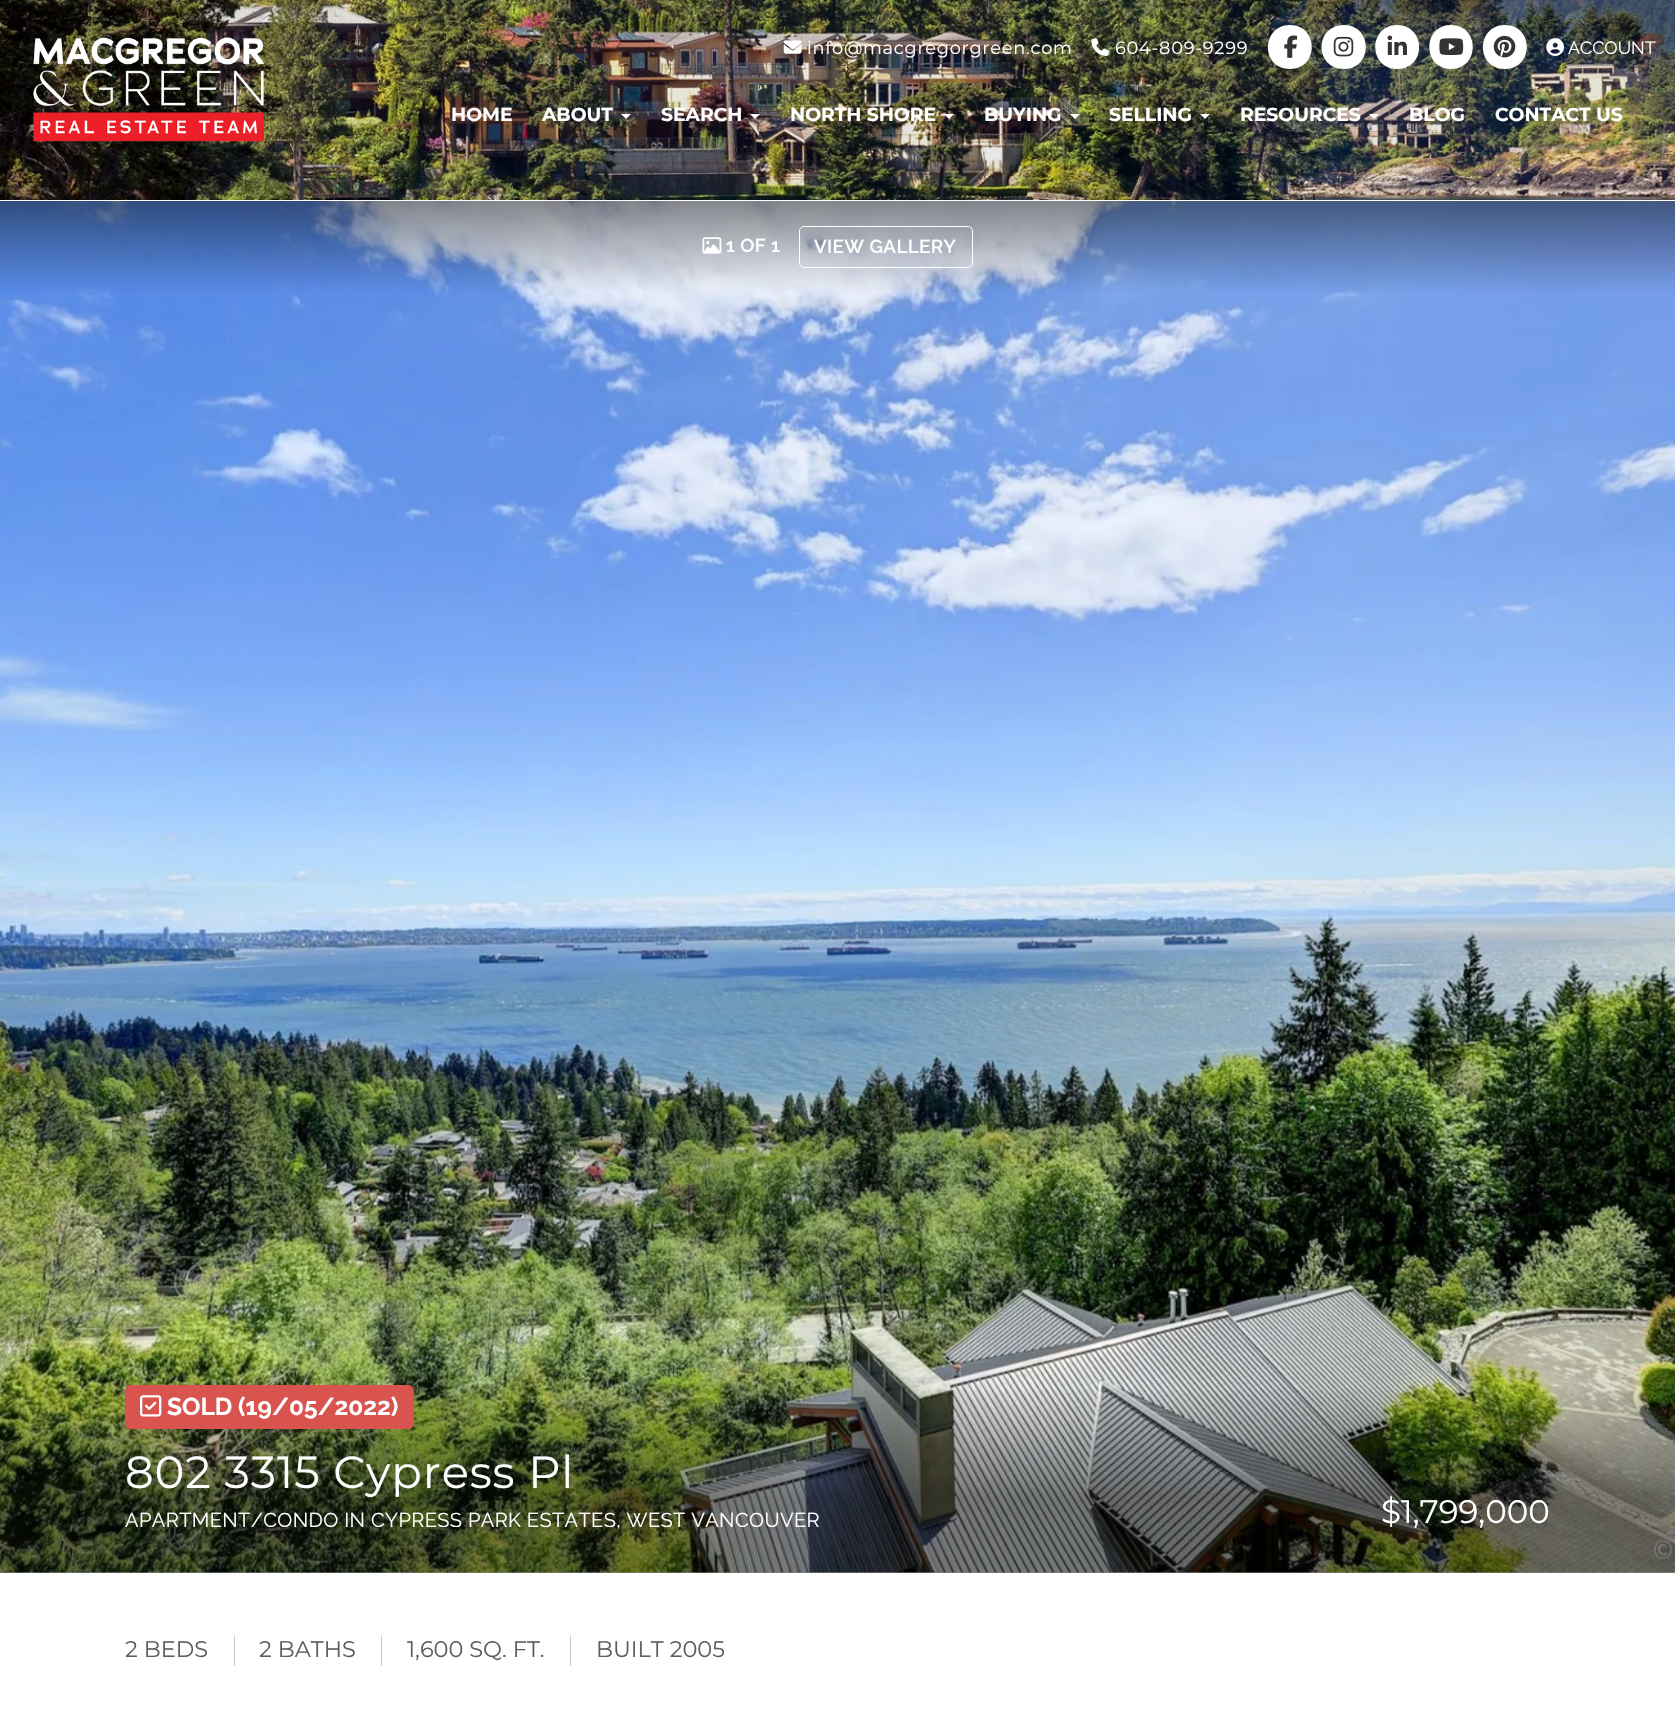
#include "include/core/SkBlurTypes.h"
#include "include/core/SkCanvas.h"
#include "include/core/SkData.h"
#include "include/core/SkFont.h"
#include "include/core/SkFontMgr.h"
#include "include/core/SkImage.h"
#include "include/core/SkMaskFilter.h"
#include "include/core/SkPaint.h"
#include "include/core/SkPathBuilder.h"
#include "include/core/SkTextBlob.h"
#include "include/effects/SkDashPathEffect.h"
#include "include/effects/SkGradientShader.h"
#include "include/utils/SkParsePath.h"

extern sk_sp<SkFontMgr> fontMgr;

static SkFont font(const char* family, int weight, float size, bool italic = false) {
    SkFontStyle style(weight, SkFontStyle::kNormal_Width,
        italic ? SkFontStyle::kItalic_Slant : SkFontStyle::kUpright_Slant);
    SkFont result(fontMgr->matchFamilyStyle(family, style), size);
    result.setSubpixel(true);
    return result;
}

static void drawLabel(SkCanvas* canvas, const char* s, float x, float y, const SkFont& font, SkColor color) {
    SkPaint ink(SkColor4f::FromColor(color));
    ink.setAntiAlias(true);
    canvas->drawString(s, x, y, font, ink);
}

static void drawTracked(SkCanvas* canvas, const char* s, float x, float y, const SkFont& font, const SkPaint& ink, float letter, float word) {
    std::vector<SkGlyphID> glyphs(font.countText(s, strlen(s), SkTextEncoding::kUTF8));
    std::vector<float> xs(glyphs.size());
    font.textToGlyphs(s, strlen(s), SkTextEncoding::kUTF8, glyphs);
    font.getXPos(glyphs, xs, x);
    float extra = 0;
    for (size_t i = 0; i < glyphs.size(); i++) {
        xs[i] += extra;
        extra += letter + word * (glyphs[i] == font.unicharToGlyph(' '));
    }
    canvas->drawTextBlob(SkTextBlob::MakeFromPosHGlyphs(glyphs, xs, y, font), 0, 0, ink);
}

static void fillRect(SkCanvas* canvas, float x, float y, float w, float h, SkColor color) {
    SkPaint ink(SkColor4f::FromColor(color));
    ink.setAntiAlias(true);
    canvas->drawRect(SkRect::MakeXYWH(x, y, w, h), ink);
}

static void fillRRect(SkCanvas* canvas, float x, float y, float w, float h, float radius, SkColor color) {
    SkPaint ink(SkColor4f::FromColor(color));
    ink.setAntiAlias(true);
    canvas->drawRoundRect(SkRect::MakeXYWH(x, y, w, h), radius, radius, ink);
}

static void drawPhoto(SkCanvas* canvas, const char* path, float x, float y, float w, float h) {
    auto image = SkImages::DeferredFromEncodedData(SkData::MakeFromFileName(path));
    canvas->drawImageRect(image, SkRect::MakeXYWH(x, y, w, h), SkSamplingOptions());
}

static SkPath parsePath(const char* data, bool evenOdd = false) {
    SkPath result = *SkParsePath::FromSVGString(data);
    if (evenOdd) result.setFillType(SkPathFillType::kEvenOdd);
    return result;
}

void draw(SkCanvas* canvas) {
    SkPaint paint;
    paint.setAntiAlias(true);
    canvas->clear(0xFFFFFFFF);
    drawPhoto(canvas, "assets/img1.png", 0, 0, 1675, 200);
    drawPhoto(canvas, "assets/img2.png", 33, 37, 231, 105);
    drawPhoto(canvas, "assets/img3.png", 783, 40, 19, 14);
    SkFont font1 = font("Montserrat", 400, 17.75f);
    paint.setColor(0xFFFFFFFF);
    drawTracked(canvas, "info@macgregorgreen.com", 807, 54, font1, paint, 0.75f, 0);
    drawPhoto(canvas, "assets/img4.png", 1091, 38, 19, 18);
    drawTracked(canvas, "604-809-9299", 1115, 54, font1, paint, 0.75f, 0);
    canvas->drawPath(parsePath("M1290 69C1319 69 1319 25 1290 25C1261 25 1260 69 1290 69Z"), paint);
    drawPhoto(canvas, "assets/img5.png", 1284, 35, 14, 23);
    canvas->drawPath(parsePath("M1344 69C1373 69 1373 25 1344 25C1314 25 1314 69 1344 69Z"), paint);
    drawPhoto(canvas, "assets/img6.png", 1333, 36, 21, 21);
    canvas->drawPath(parsePath("M1397 69C1427 69 1426 25 1397 25C1368 25 1368 69 1397 69Z"), paint);
    drawPhoto(canvas, "assets/img7.png", 1387, 35, 20, 20);
    canvas->drawPath(parsePath("M1451 69C1480 69 1480 25 1451 25C1422 25 1422 69 1451 69Z"), paint);
    drawPhoto(canvas, "assets/img8.png", 1439, 38, 25, 17);
    canvas->drawPath(parsePath("M1505 69C1534 69 1534 25 1505 25C1476 25 1475 69 1505 69Z"), paint);
    drawPhoto(canvas, "assets/img9.png", 1493, 35, 23, 23);
    drawPhoto(canvas, "assets/img10.png", 1546, 38, 18, 18);
    SkFont font2 = font("Raleway", 400, 17.75f);
    drawLabel(canvas, "ACCOUNT", 1568, 54, font2, 0xFFFFFFFF);
    SkFont font3 = font("Montserrat", 700, 18.75f);
    drawLabel(canvas, "HOME", 451, 121, font3, 0xFFFFFFFF);
    drawLabel(canvas, "ABOUT", 542, 121, font3, 0xFFFFFFFF);
    canvas->drawPath(parsePath("M621 114H631L626 119Z"), paint);
    drawLabel(canvas, "SEARCH", 661, 121, font3, 0xFFFFFFFF);
    canvas->drawPath(parsePath("M750 114H760L755 119Z"), paint);
    drawLabel(canvas, "NORTH SHORE", 790, 121, font3, 0xFFFFFFFF);
    canvas->drawPath(parsePath("M944 114H954L949 119Z"), paint);
    drawLabel(canvas, "BUYING", 984, 121, font3, 0xFFFFFFFF);
    canvas->drawPath(parsePath("M1070 114H1080L1075 119Z"), paint);
    drawLabel(canvas, "SELLING", 1109, 121, font3, 0xFFFFFFFF);
    canvas->drawPath(parsePath("M1200 114H1210L1205 119Z"), paint);
    drawLabel(canvas, "RESOURCES", 1240, 121, font3, 0xFFFFFFFF);
    canvas->drawPath(parsePath("M1369 114H1379L1374 119Z"), paint);
    drawLabel(canvas, "BLOG", 1409, 121, font3, 0xFFFFFFFF);
    drawLabel(canvas, "CONTACT US", 1495, 121, font3, 0xFFFFFFFF);
    fillRect(canvas, 0, 1572, 1675, 1, 0xFFF5F5F5);
    drawPhoto(canvas, "assets/img11.png", 0, 201, 1675, 1372);
    drawPhoto(canvas, "assets/img12.png", 702, 237, 20, 17);
    SkFont font4 = font("Raleway", 600, 18.75f);
    drawTracked(canvas, "1 OF 1", 726, 252, font4, paint, 0.4f, 0);
    paint.setStroke(true);
    paint.setStrokeWidth(1);
    canvas->drawRoundRect(SkRect::MakeXYWH(799.5f, 226.5f, 173, 41), 4.5f, 4.5f, paint);
    paint.setStroke(false);
    drawTracked(canvas, "VIEW GALLERY", 814, 253, font4, paint, 0.4f, 0);
    {
        const SkColor colors[] = {0x00000000, 0x73000000};
        const float stops[] = {0, 0.6f};
        const SkPoint ends[] = {{838, 1385}, {838, 1573}};
        paint.setShader(SkGradientShader::MakeLinear(ends, colors, stops, 2, SkTileMode::kClamp));
        paint.setAlpha(255);
    }
    canvas->drawRect(SkRect::MakeXYWH(0, 1390, 1675, 183), paint);
    fillRRect(canvas, 125, 1385, 289, 44, 6, 0xFFD9534F);
    drawPhoto(canvas, "assets/img13.png", 140, 1395, 22, 22);
    SkFont font5 = font("Raleway", 700, 24.4f);
    drawLabel(canvas, "SOLD (19/05/2022)", 167, 1415, font5, 0xFFFFFFFF);
    SkFont font6 = font("Montserrat", 400, 45);
    paint.setShader(nullptr);
    paint.setColor(0xFFFFFFFF);
    drawTracked(canvas, "802 3315 Cypress Pl", 125, 1488, font6, paint, 0.9f, 0);
    SkFont font7 = font("Raleway", 400, 20);
    drawTracked(canvas, "APARTMENT/CONDO IN CYPRESS PARK ESTATES, WEST VANCOUVER", 125, 1527, font7, paint, 0.4f, 0);
    SkFont font8 = font("Montserrat", 400, 32.5f);
    drawLabel(canvas, "$1,799,000", 1381, 1523, font8, 0xFFFFFFFF);
    fillRect(canvas, 234, 1635, 1, 31, 0xFFCCCCCC);
    SkFont font9 = font("Montserrat", 400, 22.5f);
    drawLabel(canvas, "2 BEDS", 125, 1657, font9, 0xFF5E5E5E);
    fillRect(canvas, 381, 1635, 1, 31, 0xFFCCCCCC);
    drawLabel(canvas, "2 BATHS", 259, 1657, font9, 0xFF5E5E5E);
    fillRect(canvas, 570, 1635, 1, 31, 0xFFCCCCCC);
    drawLabel(canvas, "1,600 SQ. FT.", 407, 1657, font9, 0xFF5E5E5E);
    drawLabel(canvas, "BUILT 2005", 596, 1657, font9, 0xFF5E5E5E);
}
